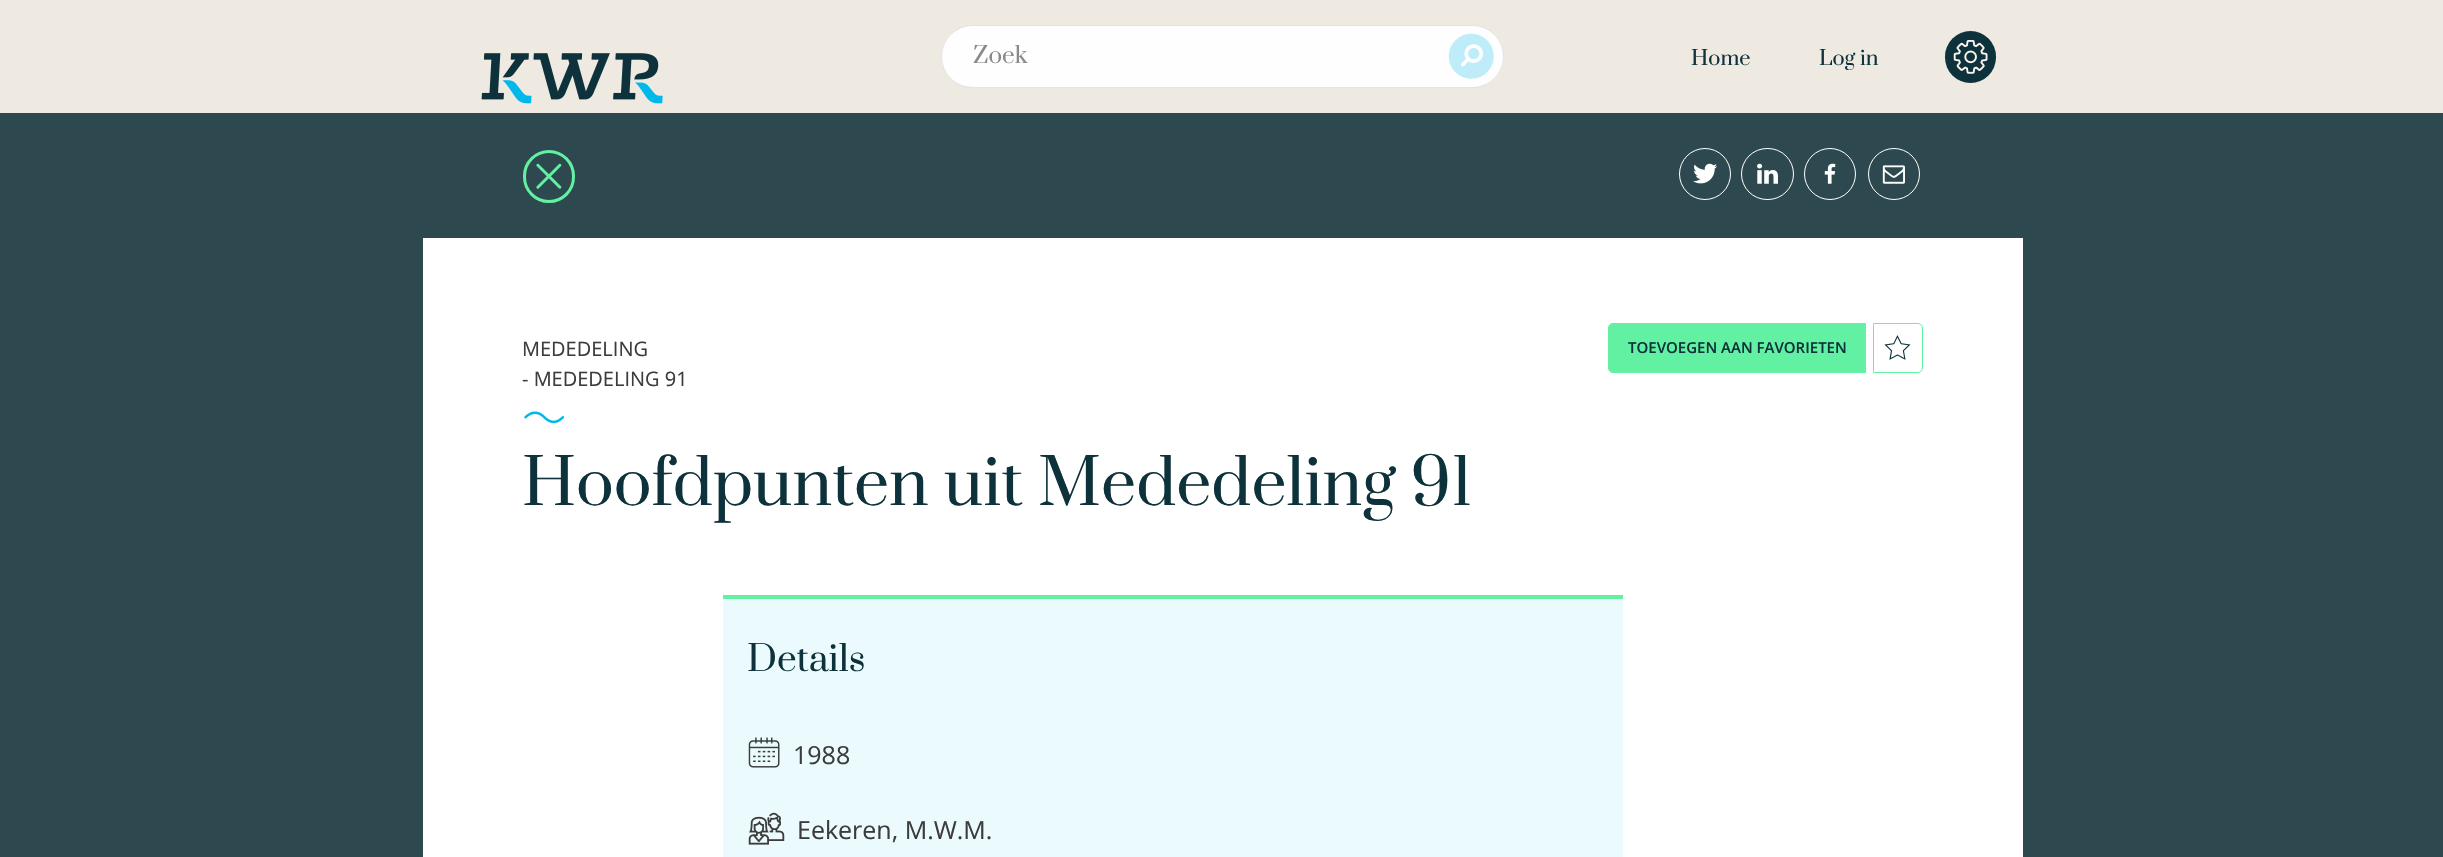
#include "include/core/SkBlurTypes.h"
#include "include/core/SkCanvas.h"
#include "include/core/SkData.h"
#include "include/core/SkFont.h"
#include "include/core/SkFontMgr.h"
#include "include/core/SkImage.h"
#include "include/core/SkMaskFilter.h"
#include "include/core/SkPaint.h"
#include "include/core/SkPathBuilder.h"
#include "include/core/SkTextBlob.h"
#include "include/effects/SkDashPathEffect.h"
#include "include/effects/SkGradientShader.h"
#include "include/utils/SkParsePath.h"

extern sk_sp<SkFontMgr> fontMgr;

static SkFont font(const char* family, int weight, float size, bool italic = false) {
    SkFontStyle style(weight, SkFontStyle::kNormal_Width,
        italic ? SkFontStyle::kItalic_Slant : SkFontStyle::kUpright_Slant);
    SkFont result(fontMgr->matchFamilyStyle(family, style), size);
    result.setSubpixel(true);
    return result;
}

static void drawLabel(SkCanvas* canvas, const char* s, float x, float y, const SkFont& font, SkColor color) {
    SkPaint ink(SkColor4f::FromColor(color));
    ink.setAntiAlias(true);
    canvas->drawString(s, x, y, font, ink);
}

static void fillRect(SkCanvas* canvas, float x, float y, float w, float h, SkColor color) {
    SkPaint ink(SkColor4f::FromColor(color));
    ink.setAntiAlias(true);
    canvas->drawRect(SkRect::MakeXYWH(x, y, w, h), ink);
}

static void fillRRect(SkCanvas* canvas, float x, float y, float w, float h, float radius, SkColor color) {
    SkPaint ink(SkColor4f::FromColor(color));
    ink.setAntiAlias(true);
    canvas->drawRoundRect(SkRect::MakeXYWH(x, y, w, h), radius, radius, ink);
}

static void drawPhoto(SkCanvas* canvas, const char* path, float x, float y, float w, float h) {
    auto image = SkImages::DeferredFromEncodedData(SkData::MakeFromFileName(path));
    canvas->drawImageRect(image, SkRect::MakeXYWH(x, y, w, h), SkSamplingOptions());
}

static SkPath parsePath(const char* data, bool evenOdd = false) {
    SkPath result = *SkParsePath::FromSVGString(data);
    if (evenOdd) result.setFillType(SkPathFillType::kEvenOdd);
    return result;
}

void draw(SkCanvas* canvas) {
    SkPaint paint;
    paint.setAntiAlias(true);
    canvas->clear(0xFFF9F5ED);
    fillRect(canvas, 0, 0, 2443, 113, 0xFFEEEAE2);
    paint.setColor(0xFFEEEAE2);
    canvas->drawPath(parsePath("M398 146V93H928L929 111H733C723 111 721 115 715 122L706 134C701 141 697 146 682 146Z"), paint);
    drawPhoto(canvas, "assets/img1.png", 481, 53, 182, 51);
    fillRRect(canvas, 941, 25, 563, 63, 31.5f, 0xFFFEFEFE);
    paint.setStroke(true);
    paint.setStrokeWidth(1);
    paint.setColor(0x1A000000);
    canvas->drawRoundRect(SkRect::MakeXYWH(941.5f, 25.5f, 562, 62), 31, 31, paint);
    SkFont font1 = font("Prata", 400, 22.5f);
    drawLabel(canvas, "Zoek", 973, 63, font1, 0xFF8A8A8A);
    drawPhoto(canvas, "assets/img2.png", 1448, 33, 46, 46);
    SkFont font2 = font("Prata", 400, 20);
    drawLabel(canvas, "Home", 1691, 65, font2, 0xFF0E323B);
    drawLabel(canvas, "Log in", 1819, 65, font2, 0xFF0E323B);
    fillRRect(canvas, 1945, 31, 51, 52, 25.5f, 0xFF0E323B);
    drawPhoto(canvas, "assets/img3.png", 1953, 40, 35, 34);
    fillRect(canvas, 0, 113, 398, 33, 0xFFEEEAE2);
    fillRect(canvas, 0, 113, 2443, 744, 0xF2223F46);
    paint.setStrokeWidth(3);
    paint.setColor(0xFF62F0A2);
    canvas->drawRoundRect(SkRect::MakeXYWH(524.5f, 151.5f, 49, 50), 24.5f, 24.5f, paint);
    drawPhoto(canvas, "assets/img4.png", 536, 163, 26, 26);
    paint.setStrokeWidth(1);
    paint.setColor(0xFFFFFFFF);
    canvas->drawCircle(1705, 174, 25.5f, paint);
    drawPhoto(canvas, "assets/img5.png", 1693, 163, 24, 21);
    canvas->drawRoundRect(SkRect::MakeXYWH(1741.5f, 148.5f, 52, 51), 25.5f, 25.5f, paint);
    drawPhoto(canvas, "assets/img6.png", 1757, 163, 21, 21);
    canvas->drawCircle(1830, 174, 25.5f, paint);
    drawPhoto(canvas, "assets/img7.png", 1824, 163, 12, 21);
    canvas->drawCircle(1894, 174, 25.5f, paint);
    drawPhoto(canvas, "assets/img8.png", 1882, 165, 23, 19);
    fillRect(canvas, 423, 238, 1600, 619, 0xFFFFFFFF);
    SkFont font3 = font("Open Sans", 400, 20);
    drawLabel(canvas, "MEDEDELING", 522, 356, font3, 0xFF3C3C3C);
    drawLabel(canvas, "- MEDEDELING 91", 522, 386, font3, 0xFF3C3C3C);
    drawPhoto(canvas, "assets/img9.png", 524, 411, 41, 13);
    paint.setStroke(false);
    paint.setColor(0xFF62F0A2);
    canvas->drawPath(parsePath("M1613 323.5H1865.5V372.5H1613C1610.5 372.5 1608.5 370.5 1608.5 368V328C1608.5 325.5 1610.5 323.5 1613 323.5Z"), paint);
    paint.setStroke(true);
    canvas->drawPath(parsePath("M1613 323.5H1865.5V372.5H1613C1610.5 372.5 1608.5 370.5 1608.5 368V328C1608.5 325.5 1610.5 323.5 1613 323.5Z"), paint);
    SkFont font4 = font("Open Sans", 600, 15);
    drawLabel(canvas, "TOEVOEGEN AAN FAVORIETEN", 1628, 353, font4, 0xFF0E323B);
    canvas->drawPath(parsePath("M1873.5 323.5H1918C1920.5 323.5 1922.5 325.5 1922.5 328V368C1922.5 370.5 1920.5 372.5 1918 372.5H1873.5Z"), paint);
    drawPhoto(canvas, "assets/img10.png", 1884, 335, 27, 25);
    SkFont font5 = font("Prata", 400, 62.5f);
    drawLabel(canvas, "Hoofdpunten uit Mededeling 91", 522, 505, font5, 0xFF0E323B);
    fillRect(canvas, 723, 599, 900, 258, 0xFFEBFAFD);
    fillRect(canvas, 723, 595, 900, 4, 0xFF62F0A2);
    SkFont font6 = font("Prata", 400, 35);
    drawLabel(canvas, "Details", 747, 671, font6, 0xFF0E323B);
    drawPhoto(canvas, "assets/img11.png", 748, 737, 32, 31);
    SkFont font7 = font("Open Sans", 400, 25);
    drawLabel(canvas, "1988", 793, 764, font7, 0xFF3C3C3C);
    drawPhoto(canvas, "assets/img12.png", 748, 812, 37, 33);
    drawLabel(canvas, "Eekeren, M.W.M.", 797, 839, font7, 0xFF3C3C3C);
}
